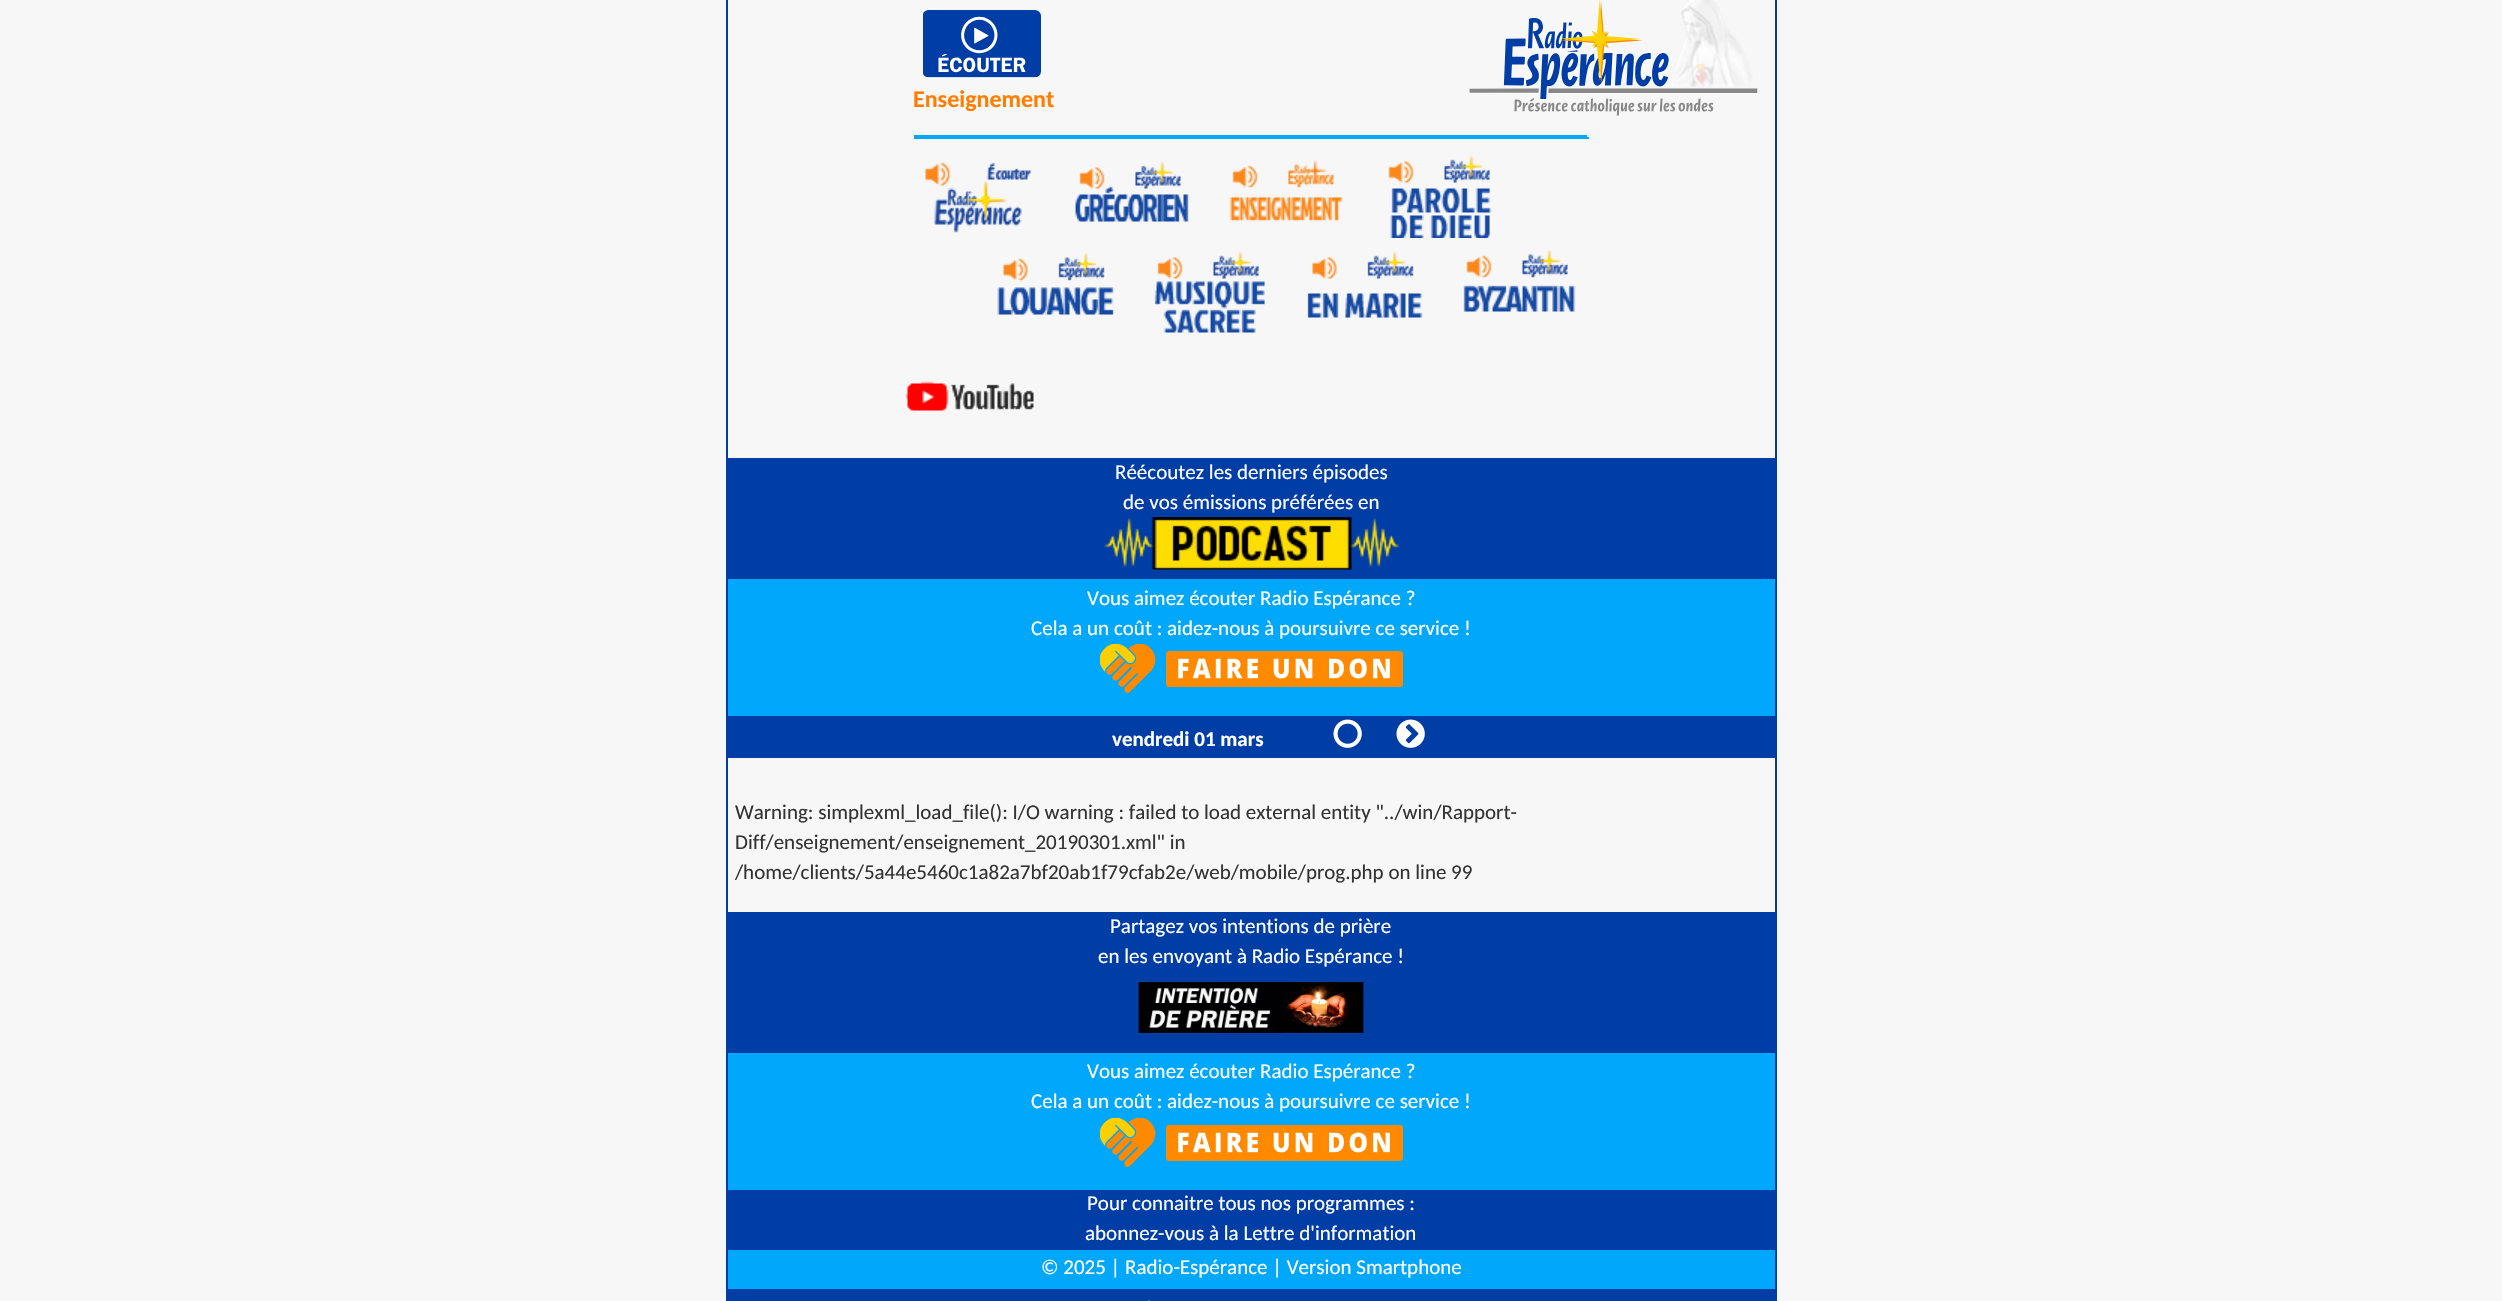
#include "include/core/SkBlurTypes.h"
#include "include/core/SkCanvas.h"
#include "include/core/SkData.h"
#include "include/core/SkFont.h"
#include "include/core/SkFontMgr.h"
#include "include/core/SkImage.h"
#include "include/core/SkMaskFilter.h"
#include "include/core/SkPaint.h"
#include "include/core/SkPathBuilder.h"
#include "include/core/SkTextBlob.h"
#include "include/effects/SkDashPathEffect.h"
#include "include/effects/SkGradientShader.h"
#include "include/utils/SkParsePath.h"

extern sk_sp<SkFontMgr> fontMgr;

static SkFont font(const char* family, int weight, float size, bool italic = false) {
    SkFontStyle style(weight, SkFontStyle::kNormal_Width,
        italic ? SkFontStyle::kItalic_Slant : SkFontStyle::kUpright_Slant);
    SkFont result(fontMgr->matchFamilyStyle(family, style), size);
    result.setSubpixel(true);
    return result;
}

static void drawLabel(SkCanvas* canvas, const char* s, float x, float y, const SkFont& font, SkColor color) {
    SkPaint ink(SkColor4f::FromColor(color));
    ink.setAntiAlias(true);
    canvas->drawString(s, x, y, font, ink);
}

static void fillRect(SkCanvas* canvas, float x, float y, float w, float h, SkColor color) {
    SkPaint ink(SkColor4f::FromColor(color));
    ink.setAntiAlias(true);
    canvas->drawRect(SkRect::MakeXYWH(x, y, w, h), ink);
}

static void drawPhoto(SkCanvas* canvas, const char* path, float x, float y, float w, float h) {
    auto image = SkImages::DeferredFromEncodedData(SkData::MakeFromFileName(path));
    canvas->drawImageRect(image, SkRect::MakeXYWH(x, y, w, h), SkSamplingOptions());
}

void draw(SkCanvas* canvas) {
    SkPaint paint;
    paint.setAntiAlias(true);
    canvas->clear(0xFFF7F7F7);
    drawPhoto(canvas, "assets/img1.png", 1669, 0, 84, 87);
    fillRect(canvas, 1775, 0, 2, 1301, 0xFF003DA5);
    fillRect(canvas, 726, 0, 2, 1301, 0xFF003DA5);
    drawPhoto(canvas, "assets/img2.png", 923, 10, 118, 68);
    SkFont font1 = font("Carlito", 700, 24);
    drawLabel(canvas, "Enseignement", 913, 107, font1, 0xFFFF7E00);
    drawPhoto(canvas, "assets/img3.png", 1469, 0, 289, 116);
    fillRect(canvas, 914, 135, 675, 2, 0xFF00A7FB);
    fillRect(canvas, 1587, 135, 2, 3, 0xFFFFFFFF);
    fillRect(canvas, 914, 137, 675, 2, 0xFF00A7FB);
    drawPhoto(canvas, "assets/img4.png", 925, 162, 106, 71);
    drawPhoto(canvas, "assets/img5.png", 1075, 161, 114, 61);
    drawPhoto(canvas, "assets/img6.png", 1229, 160, 114, 62);
    drawPhoto(canvas, "assets/img7.png", 1388, 155, 104, 83);
    drawPhoto(canvas, "assets/img8.png", 997, 253, 117, 62);
    drawPhoto(canvas, "assets/img9.png", 1154, 251, 111, 82);
    drawPhoto(canvas, "assets/img10.png", 1307, 251, 116, 67);
    drawPhoto(canvas, "assets/img11.png", 1463, 250, 113, 62);
    drawPhoto(canvas, "assets/img12.png", 905, 381, 129, 30);
    fillRect(canvas, 728, 458, 1047, 121, 0xFF003DA5);
    SkFont font2 = font("Carlito", 400, 21);
    drawLabel(canvas, "Réécoutez les derniers épisodes", 1115, 479, font2, 0xFFFFFFFF);
    drawLabel(canvas, "de vos émissions préférées en", 1123, 509, font2, 0xFFFFFFFF);
    drawPhoto(canvas, "assets/img13.png", 1104, 517, 296, 53);
    fillRect(canvas, 728, 579, 1047, 137, 0xFF00A7FB);
    drawLabel(canvas, "Vous aimez écouter Radio Espérance ?", 1087, 605, font2, 0xFFFFFFFF);
    drawLabel(canvas, "Cela a un coût : aidez-nous à poursuivre ce service !", 1031, 635, font2, 0xFFFFFFFF);
    drawPhoto(canvas, "assets/img14.png", 1100, 644, 303, 49);
    fillRect(canvas, 728, 716, 1047, 42, 0xFF003DA5);
    SkFont font3 = font("Carlito", 700, 21);
    drawLabel(canvas, "vendredi 01 mars", 1112, 746, font3, 0xFFFFFFFF);
    drawPhoto(canvas, "assets/img15.png", 1333, 719, 29, 29);
    drawPhoto(canvas, "assets/img16.png", 1396, 719, 29, 29);
    drawLabel(canvas, "Warning: simplexml_load_file(): I/O warning : failed to load external entity \"../win/Rapport-", 735, 819, font2, 0xFF333333);
    drawLabel(canvas, "Diff/enseignement/enseignement_20190301.xml\" in", 735, 849, font2, 0xFF333333);
    drawLabel(canvas, "/home/clients/5a44e5460c1a82a7bf20ab1f79cfab2e/web/mobile/prog.php on line 99", 735, 879, font2, 0xFF333333);
    fillRect(canvas, 728, 912, 1047, 141, 0xFF003DA5);
    drawLabel(canvas, "Partagez vos intentions de prière", 1110, 933, font2, 0xFFFFFFFF);
    drawLabel(canvas, "en les envoyant à Radio Espérance !", 1098, 963, font2, 0xFFFFFFFF);
    drawPhoto(canvas, "assets/img17.png", 1138, 982, 226, 51);
    fillRect(canvas, 728, 1053, 1047, 137, 0xFF00A7FB);
    drawLabel(canvas, "Vous aimez écouter Radio Espérance ?", 1087, 1078, font2, 0xFFFFFFFF);
    drawLabel(canvas, "Cela a un coût : aidez-nous à poursuivre ce service !", 1031, 1108, font2, 0xFFFFFFFF);
    drawPhoto(canvas, "assets/img14.png", 1100, 1118, 303, 49);
    fillRect(canvas, 728, 1190, 1047, 60, 0xFF003DA5);
    drawLabel(canvas, "Pour connaitre tous nos programmes :", 1087, 1210, font2, 0xFFFFFFFF);
    drawLabel(canvas, "abonnez-vous à la Lettre d'information", 1085, 1240, font2, 0xFFFFFFFF);
    fillRect(canvas, 728, 1250, 1047, 39, 0xFF00A7FB);
    drawLabel(canvas, "© 2025 | Radio-Espérance | Version Smartphone", 1041, 1274, font2, 0xFFFFFFFF);
    fillRect(canvas, 728, 1289, 1047, 12, 0xFF003DA5);
    drawPhoto(canvas, "assets/img18.png", 1147, 1300, 3, 1);
}
